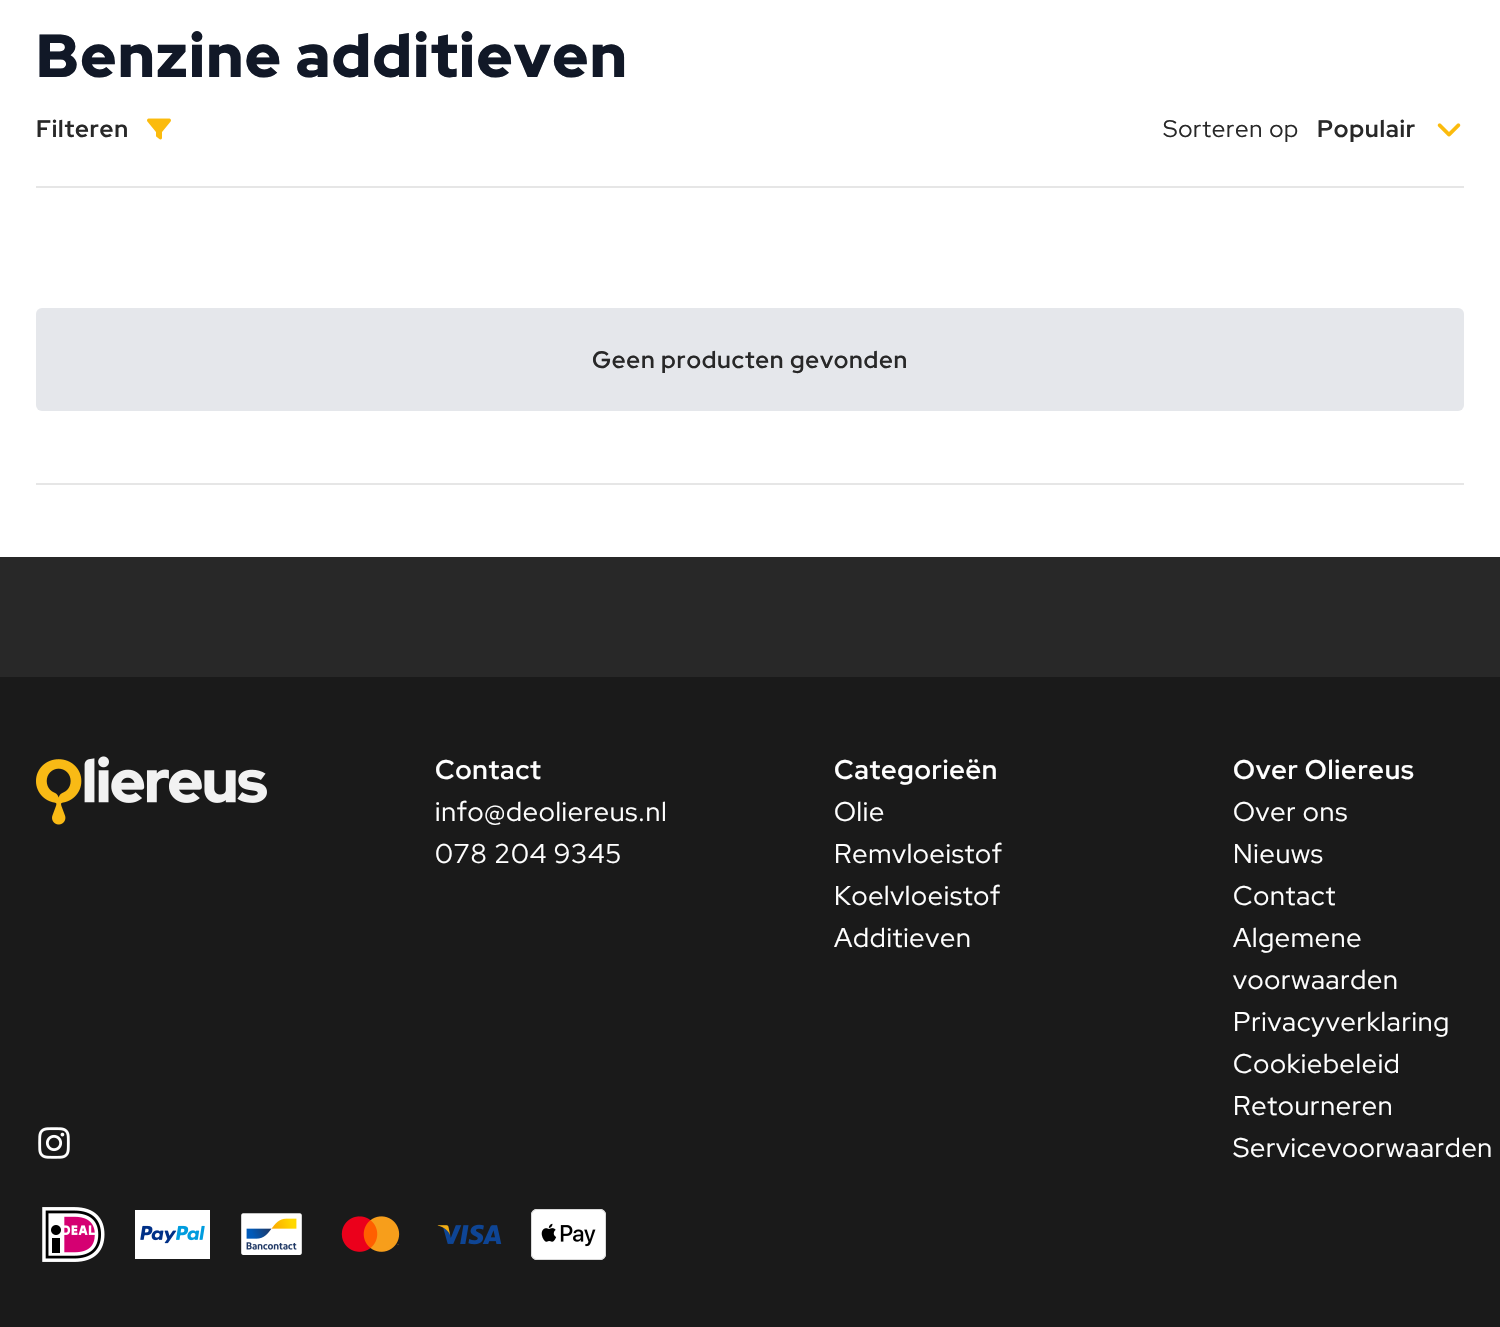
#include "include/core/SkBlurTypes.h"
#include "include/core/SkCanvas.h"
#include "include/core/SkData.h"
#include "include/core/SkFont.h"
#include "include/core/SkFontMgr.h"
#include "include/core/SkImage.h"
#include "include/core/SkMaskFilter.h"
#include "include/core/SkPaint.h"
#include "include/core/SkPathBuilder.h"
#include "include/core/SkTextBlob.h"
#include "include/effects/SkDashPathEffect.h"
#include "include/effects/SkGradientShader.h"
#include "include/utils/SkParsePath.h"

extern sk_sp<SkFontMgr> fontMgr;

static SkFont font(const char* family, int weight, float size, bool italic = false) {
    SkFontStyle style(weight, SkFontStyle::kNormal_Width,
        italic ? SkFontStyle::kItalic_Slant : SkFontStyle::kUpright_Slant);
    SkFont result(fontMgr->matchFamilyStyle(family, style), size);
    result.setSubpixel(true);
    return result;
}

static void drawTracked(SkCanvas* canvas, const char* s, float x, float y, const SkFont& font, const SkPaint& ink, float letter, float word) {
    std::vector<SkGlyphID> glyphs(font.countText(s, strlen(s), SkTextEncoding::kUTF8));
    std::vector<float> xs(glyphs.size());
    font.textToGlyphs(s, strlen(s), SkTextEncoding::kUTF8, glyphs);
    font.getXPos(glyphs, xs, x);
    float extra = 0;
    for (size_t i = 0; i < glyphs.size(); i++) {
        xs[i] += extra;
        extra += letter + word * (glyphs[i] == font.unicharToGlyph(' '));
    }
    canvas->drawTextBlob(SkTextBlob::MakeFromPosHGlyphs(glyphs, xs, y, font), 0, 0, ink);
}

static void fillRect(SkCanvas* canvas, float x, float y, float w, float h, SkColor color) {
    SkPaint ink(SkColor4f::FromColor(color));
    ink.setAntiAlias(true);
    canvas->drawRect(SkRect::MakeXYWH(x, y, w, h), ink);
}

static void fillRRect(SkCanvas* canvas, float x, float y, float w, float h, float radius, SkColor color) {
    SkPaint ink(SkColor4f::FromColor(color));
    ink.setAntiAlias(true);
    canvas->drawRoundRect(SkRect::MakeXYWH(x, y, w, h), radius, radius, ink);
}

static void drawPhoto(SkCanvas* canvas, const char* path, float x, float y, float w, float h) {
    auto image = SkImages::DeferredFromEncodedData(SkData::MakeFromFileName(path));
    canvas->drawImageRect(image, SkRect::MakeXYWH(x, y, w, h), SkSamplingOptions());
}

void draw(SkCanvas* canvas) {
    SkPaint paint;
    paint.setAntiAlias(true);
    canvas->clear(0xFFFFFFFF);
    SkFont font1 = font("Red Hat Display", 900, 60.75f);
    paint.setColor(0xFF111827);
    drawTracked(canvas, "Benzine additieven", 36, 77, font1, paint, 1.4f, 0);
    SkFont font2 = font("Red Hat Display", 700, 24);
    paint.setColor(0xFF282828);
    drawTracked(canvas, "Filteren", 36, 137, font2, paint, 0.75f, 0);
    drawPhoto(canvas, "assets/img1.png", 147, 118, 24, 22);
    SkFont font3 = font("Red Hat Display", 400, 24);
    drawTracked(canvas, "Sorteren op", 1163, 137, font3, paint, 0.75f, 0);
    drawTracked(canvas, "Populair", 1317, 137, font2, paint, 0.75f, 0);
    drawPhoto(canvas, "assets/img2.png", 1437, 123, 24, 14);
    fillRect(canvas, 36, 186, 1428, 2, 0xFFE6E6E6);
    fillRRect(canvas, 36, 308, 1428, 103, 6, 0xFFE5E7EB);
    SkFont font4 = font("Red Hat Display", 600, 24);
    drawTracked(canvas, "Geen producten gevonden", 592, 368, font4, paint, 0.75f, 0);
    fillRect(canvas, 36, 483, 1428, 2, 0xFFE6E6E6);
    fillRect(canvas, 0, 557, 1500, 120, 0xFF282828);
    fillRect(canvas, 0, 677, 1500, 650, 0xFF1A1A1A);
    drawPhoto(canvas, "assets/img3.png", 36, 756, 231, 69);
    drawPhoto(canvas, "assets/img4.png", 38, 1127, 32, 32);
    SkFont font5 = font("Red Hat Display", 600, 27);
    paint.setColor(0xFFFFFFFF);
    drawTracked(canvas, "Contact", 435, 779, font5, paint, 0.75f, 0);
    SkFont font6 = font("Red Hat Display", 400, 27);
    drawTracked(canvas, "info@deoliereus.nl", 435, 821, font6, paint, 0.75f, 0);
    drawTracked(canvas, "078 204 9345", 435, 863, font6, paint, 0.75f, 0);
    drawTracked(canvas, "Categorieën", 834, 779, font5, paint, 0.75f, 0);
    drawTracked(canvas, "Olie", 834, 821, font6, paint, 0.75f, 0);
    drawTracked(canvas, "Remvloeistof", 834, 863, font6, paint, 0.75f, 0);
    drawTracked(canvas, "Koelvloeistof", 834, 905, font6, paint, 0.75f, 0);
    drawTracked(canvas, "Additieven", 834, 947, font6, paint, 0.75f, 0);
    drawTracked(canvas, "Over Oliereus", 1233, 779, font5, paint, 0.75f, 0);
    drawTracked(canvas, "Over ons", 1233, 821, font6, paint, 0.75f, 0);
    drawTracked(canvas, "Nieuws", 1233, 863, font6, paint, 0.75f, 0);
    drawTracked(canvas, "Contact", 1233, 905, font6, paint, 0.75f, 0);
    drawTracked(canvas, "Algemene", 1233, 947, font6, paint, 0.75f, 0);
    drawTracked(canvas, "voorwaarden", 1233, 989, font6, paint, 0.75f, 0);
    drawTracked(canvas, "Privacyverklaring", 1233, 1031, font6, paint, 0.75f, 0);
    drawTracked(canvas, "Cookiebeleid", 1233, 1073, font6, paint, 0.75f, 0);
    drawTracked(canvas, "Retourneren", 1233, 1115, font6, paint, 0.75f, 0);
    drawTracked(canvas, "Servicevoorwaarden", 1233, 1157, font6, paint, 0.75f, 0);
    drawPhoto(canvas, "assets/img5.png", 42, 1207, 63, 55);
    drawPhoto(canvas, "assets/img6.png", 135, 1210, 75, 49);
    drawPhoto(canvas, "assets/img7.png", 241, 1213, 61, 42);
    drawPhoto(canvas, "assets/img8.png", 341, 1216, 59, 36);
    drawPhoto(canvas, "assets/img9.png", 437, 1224, 65, 21);
    drawPhoto(canvas, "assets/img10.png", 531, 1209, 75, 51);
}
